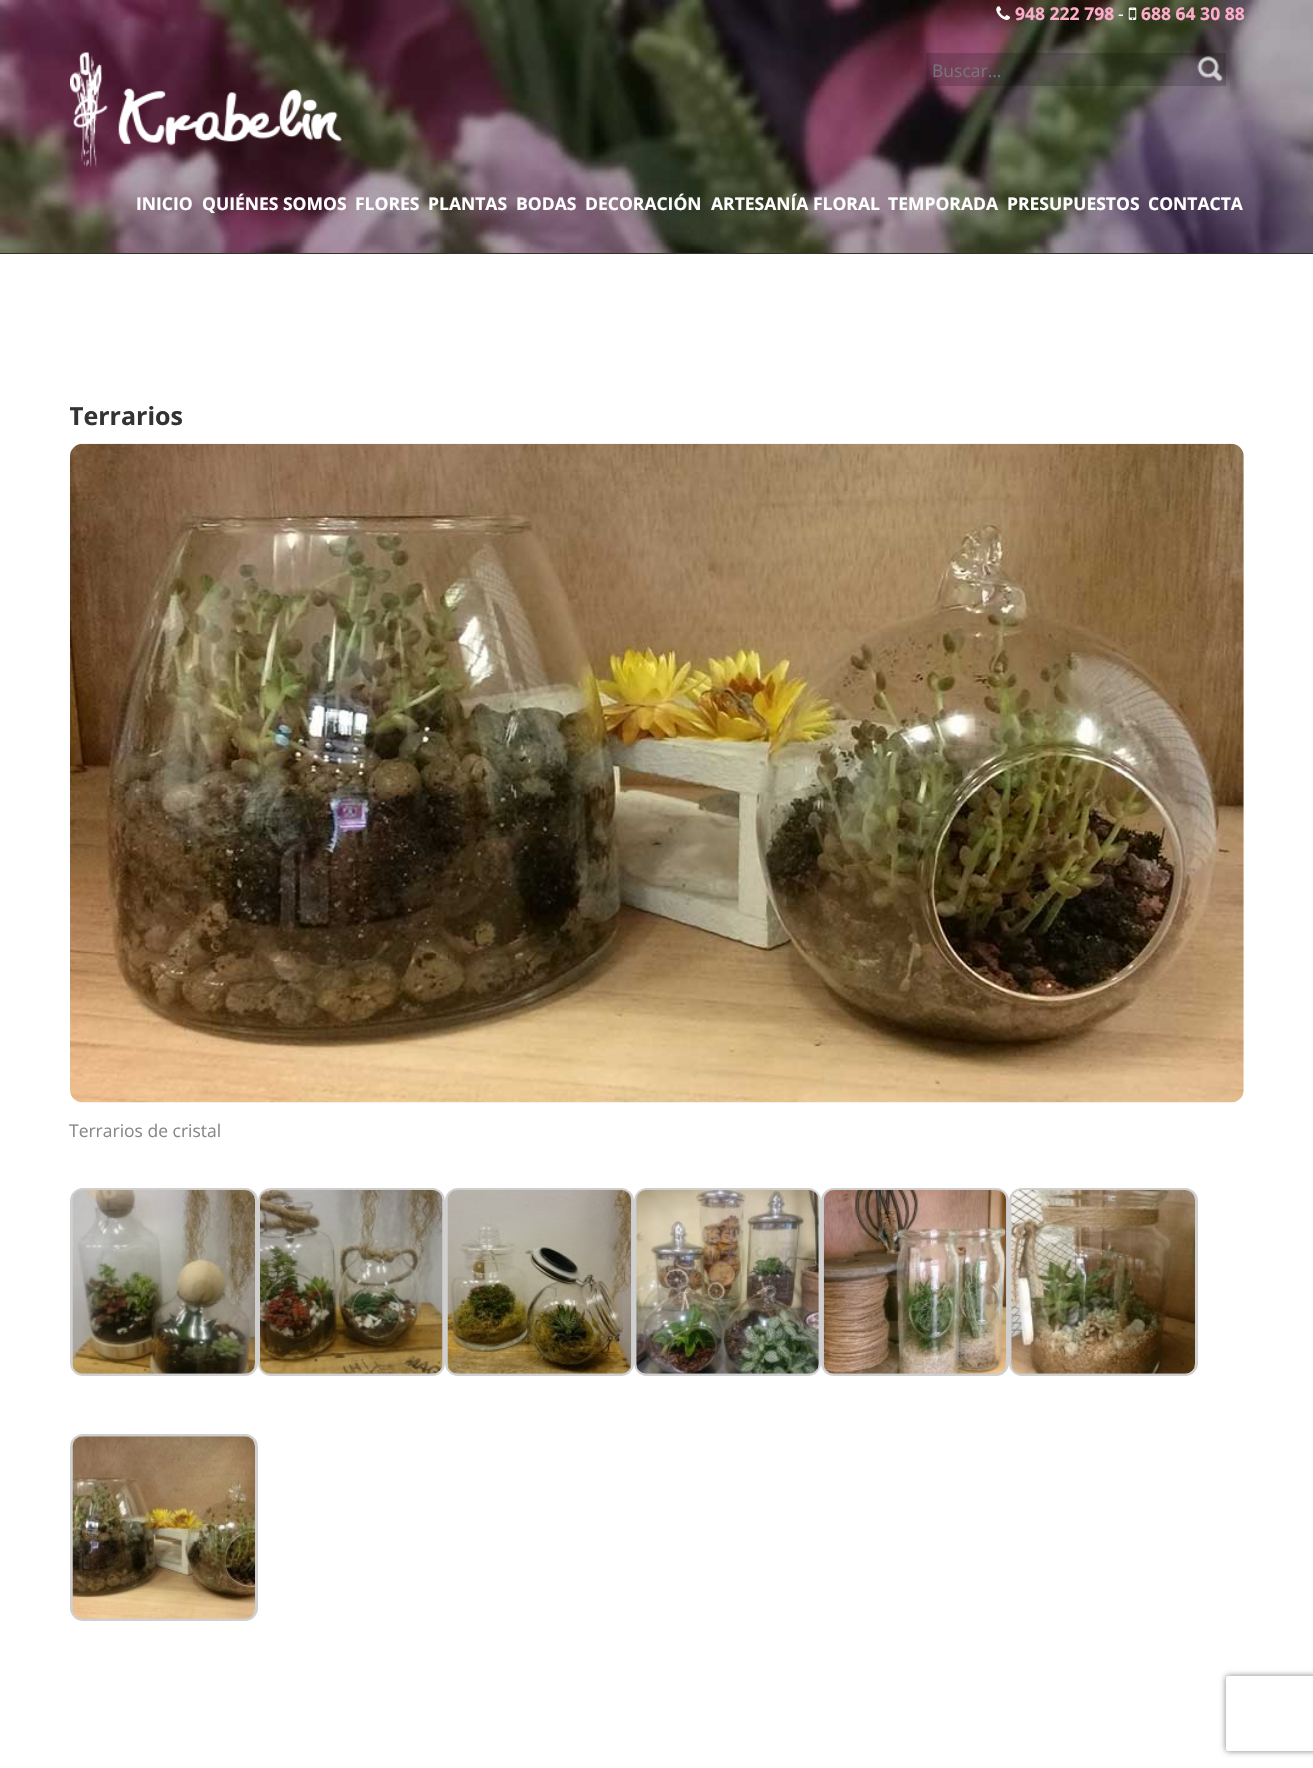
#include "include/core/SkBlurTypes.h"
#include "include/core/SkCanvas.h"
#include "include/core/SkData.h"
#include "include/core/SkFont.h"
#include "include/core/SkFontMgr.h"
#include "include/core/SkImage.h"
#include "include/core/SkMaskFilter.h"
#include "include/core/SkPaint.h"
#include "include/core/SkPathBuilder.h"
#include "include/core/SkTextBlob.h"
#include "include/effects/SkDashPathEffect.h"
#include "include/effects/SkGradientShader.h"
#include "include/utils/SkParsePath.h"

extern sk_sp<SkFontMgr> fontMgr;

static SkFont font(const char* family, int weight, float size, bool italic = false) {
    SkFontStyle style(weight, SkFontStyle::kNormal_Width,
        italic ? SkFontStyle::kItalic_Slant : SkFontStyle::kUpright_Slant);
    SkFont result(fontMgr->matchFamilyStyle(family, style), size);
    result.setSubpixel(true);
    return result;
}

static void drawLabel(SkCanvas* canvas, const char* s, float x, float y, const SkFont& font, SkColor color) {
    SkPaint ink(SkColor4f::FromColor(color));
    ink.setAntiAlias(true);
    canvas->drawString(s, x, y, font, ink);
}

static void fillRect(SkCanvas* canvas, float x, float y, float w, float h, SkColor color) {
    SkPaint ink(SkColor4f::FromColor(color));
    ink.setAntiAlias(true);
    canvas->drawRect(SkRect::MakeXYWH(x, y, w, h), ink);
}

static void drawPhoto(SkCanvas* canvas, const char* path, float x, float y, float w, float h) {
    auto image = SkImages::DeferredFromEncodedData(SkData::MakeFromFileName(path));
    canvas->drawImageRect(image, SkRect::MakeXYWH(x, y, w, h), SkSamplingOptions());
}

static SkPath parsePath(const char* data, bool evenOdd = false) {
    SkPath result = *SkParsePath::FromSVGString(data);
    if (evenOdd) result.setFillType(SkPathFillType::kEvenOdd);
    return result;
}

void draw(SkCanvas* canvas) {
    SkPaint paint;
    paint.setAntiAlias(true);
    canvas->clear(0xFFFFFFFF);
    drawPhoto(canvas, "assets/img1.png", 0, 0, 1313, 253);
    fillRect(canvas, 0, 253, 1313, 1, 0xFF382F25);
    drawPhoto(canvas, "assets/img2.png", 996, 6, 14, 14);
    SkFont font1 = font("Open Sans", 700, 17.5f);
    drawLabel(canvas, "948 222 798", 1015, 20, font1, 0xFFFFACCA);
    SkFont font2 = font("Open Sans", 400, 17.5f);
    drawLabel(canvas, "-", 1118, 20, font2, 0xFFFFFFFF);
    drawPhoto(canvas, "assets/img3.png", 1128, 7, 9, 13);
    drawLabel(canvas, "688 64 30 88", 1141, 20, font1, 0xFFFFACCA);
    drawPhoto(canvas, "assets/img4.png", 70, 52, 272, 116);
    fillRect(canvas, 926, 53, 300, 33, 0x2E000000);
    drawLabel(canvas, "Buscar...", 932, 77, font2, 0xFF757575);
    drawPhoto(canvas, "assets/img5.png", 1197, 56, 26, 26);
    drawLabel(canvas, "INICIO", 136, 210, font1, 0xFFFFFFFF);
    drawLabel(canvas, "QUIÉNES SOMOS", 202, 210, font1, 0xFFFFFFFF);
    drawLabel(canvas, "FLORES", 355, 210, font1, 0xFFFFFFFF);
    drawLabel(canvas, "PLANTAS", 428, 210, font1, 0xFFFFFFFF);
    drawLabel(canvas, "BODAS", 516, 210, font1, 0xFFFFFFFF);
    drawLabel(canvas, "DECORACIÓN", 585, 210, font1, 0xFFFFFFFF);
    drawLabel(canvas, "ARTESANÍA FLORAL", 711, 210, font1, 0xFFFFFFFF);
    drawLabel(canvas, "TEMPORADA", 888, 210, font1, 0xFFFFFFFF);
    drawLabel(canvas, "PRESUPUESTOS", 1007, 210, font1, 0xFFFFFFFF);
    drawLabel(canvas, "CONTACTA", 1148, 210, font1, 0xFFFFFFFF);
    canvas->save();
    canvas->clipRect(SkRect::MakeXYWH(70, 379, 1175, 1287));
    SkFont font3 = font("Open Sans", 700, 25);
    drawLabel(canvas, "Terrarios", 69, 425, font3, 0xFF333333);
    canvas->restore();
    drawPhoto(canvas, "assets/img6.png", 70, 443, 1174, 660);
    drawLabel(canvas, "Terrarios de cristal", 69, 1137, font2, 0xFF888888);
    paint.setStroke(true);
    paint.setStrokeWidth(3);
    paint.setColor(0xFFCFCFCF);
    canvas->drawRoundRect(SkRect::MakeXYWH(71.5f, 1189.5f, 185, 185), 11.5f, 11.5f, paint);
    drawPhoto(canvas, "assets/img7.png", 72, 1190, 183, 184);
    canvas->drawRoundRect(SkRect::MakeXYWH(259.5f, 1189.5f, 184, 185), 11.5f, 11.5f, paint);
    drawPhoto(canvas, "assets/img8.png", 260, 1190, 183, 184);
    canvas->drawRoundRect(SkRect::MakeXYWH(446.5f, 1189.5f, 186, 185), 11.5f, 11.5f, paint);
    drawPhoto(canvas, "assets/img9.png", 447, 1190, 185, 184);
    canvas->drawRoundRect(SkRect::MakeXYWH(635.5f, 1189.5f, 184, 185), 11.5f, 11.5f, paint);
    drawPhoto(canvas, "assets/img10.png", 636, 1190, 183, 184);
    canvas->drawRoundRect(SkRect::MakeXYWH(822.5f, 1189.5f, 185, 185), 11.5f, 11.5f, paint);
    drawPhoto(canvas, "assets/img11.png", 823, 1190, 184, 184);
    canvas->drawRoundRect(SkRect::MakeXYWH(1010.5f, 1189.5f, 186, 185), 11.5f, 11.5f, paint);
    drawPhoto(canvas, "assets/img12.png", 1011, 1190, 184, 184);
    canvas->drawRoundRect(SkRect::MakeXYWH(71.5f, 1435.5f, 185, 184), 11.5f, 11.5f, paint);
    drawPhoto(canvas, "assets/img13.png", 72, 1436, 183, 183);
    canvas->save();
    canvas->clipPath(parsePath("M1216 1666H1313V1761H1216ZM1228.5 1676H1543.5C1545 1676 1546 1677 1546 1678.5V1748.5C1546 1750 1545 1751 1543.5 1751H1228.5C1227 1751 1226 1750 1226 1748.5V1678.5C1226 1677 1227 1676 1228.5 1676Z", true), true);
    paint.setStroke(false);
    paint.setColor(0xFF808080);
    paint.setMaskFilter(SkMaskFilter::MakeBlur(kNormal_SkBlurStyle, 3));
    canvas->drawRoundRect(SkRect::MakeXYWH(1226, 1676, 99, 75), 2.5f, 2.5f, paint);
    paint.setMaskFilter(nullptr);
    canvas->restore();
}
